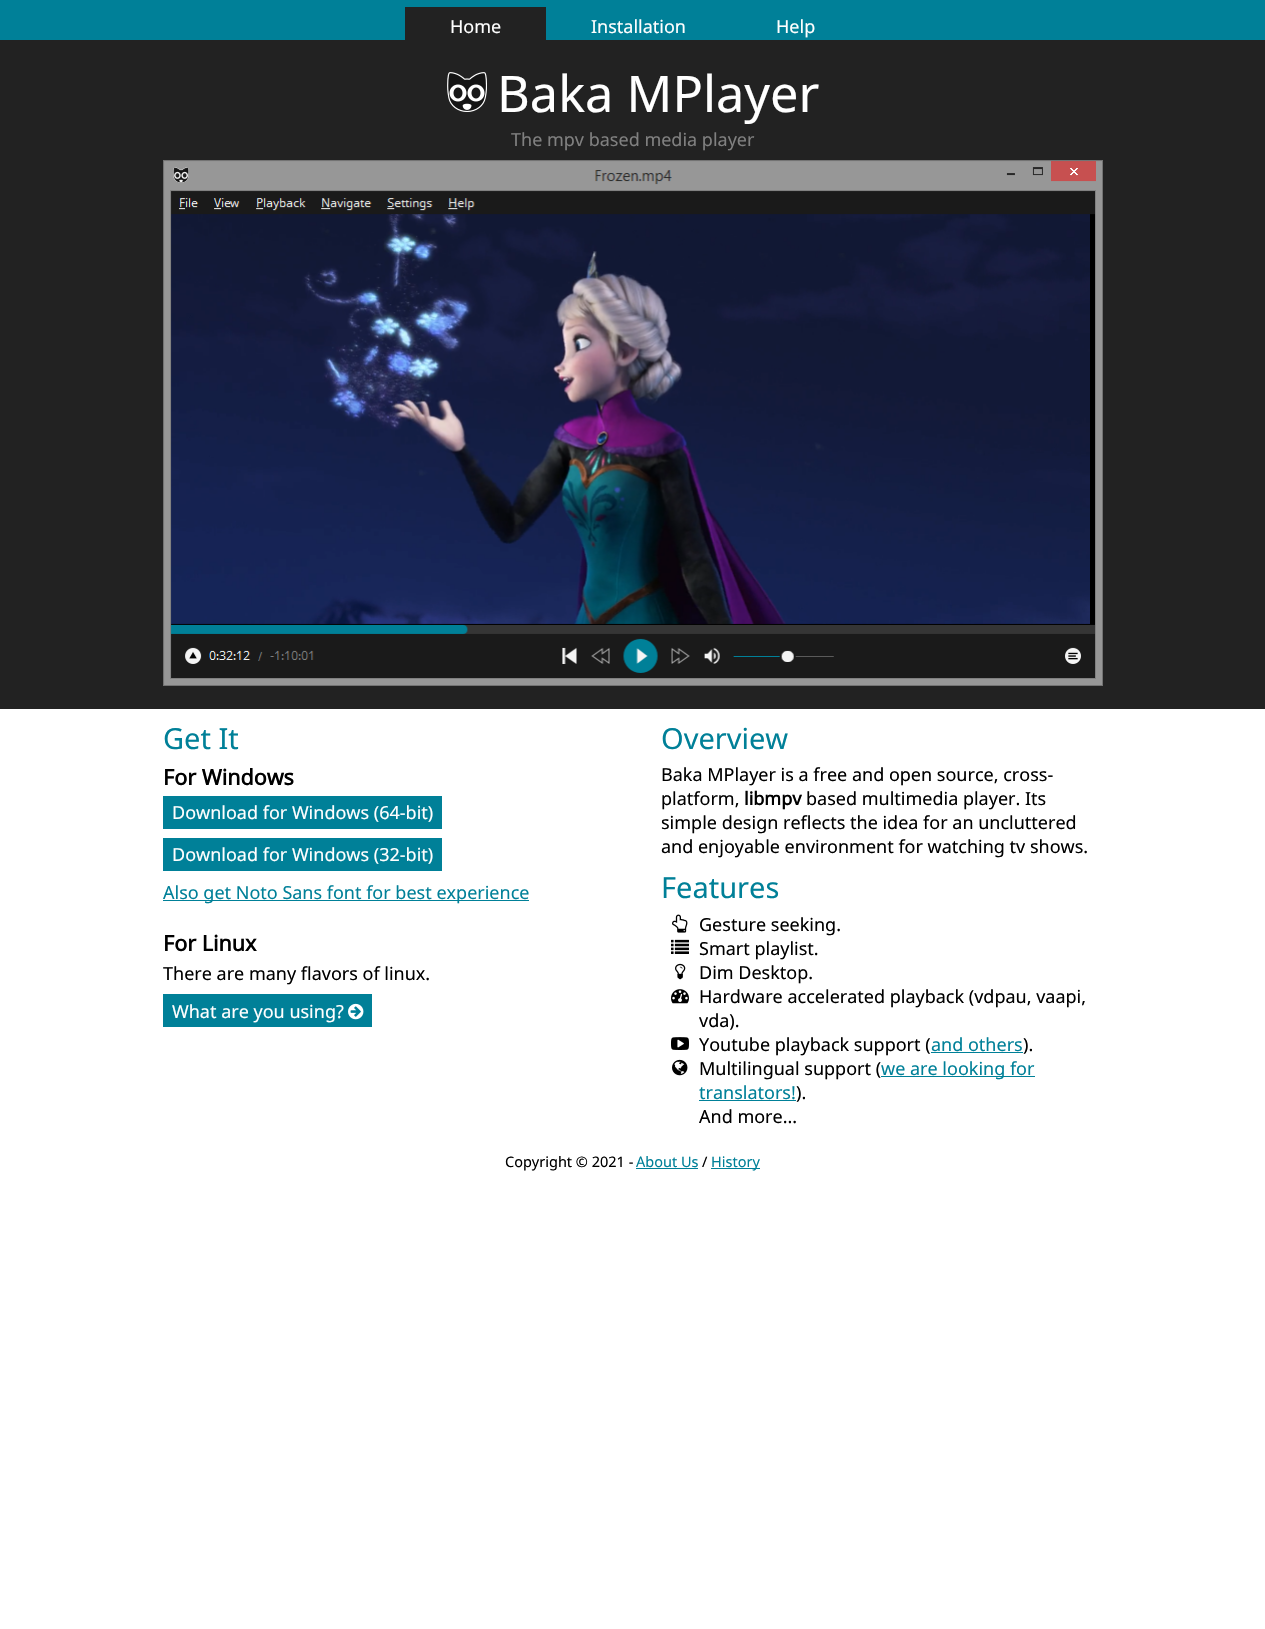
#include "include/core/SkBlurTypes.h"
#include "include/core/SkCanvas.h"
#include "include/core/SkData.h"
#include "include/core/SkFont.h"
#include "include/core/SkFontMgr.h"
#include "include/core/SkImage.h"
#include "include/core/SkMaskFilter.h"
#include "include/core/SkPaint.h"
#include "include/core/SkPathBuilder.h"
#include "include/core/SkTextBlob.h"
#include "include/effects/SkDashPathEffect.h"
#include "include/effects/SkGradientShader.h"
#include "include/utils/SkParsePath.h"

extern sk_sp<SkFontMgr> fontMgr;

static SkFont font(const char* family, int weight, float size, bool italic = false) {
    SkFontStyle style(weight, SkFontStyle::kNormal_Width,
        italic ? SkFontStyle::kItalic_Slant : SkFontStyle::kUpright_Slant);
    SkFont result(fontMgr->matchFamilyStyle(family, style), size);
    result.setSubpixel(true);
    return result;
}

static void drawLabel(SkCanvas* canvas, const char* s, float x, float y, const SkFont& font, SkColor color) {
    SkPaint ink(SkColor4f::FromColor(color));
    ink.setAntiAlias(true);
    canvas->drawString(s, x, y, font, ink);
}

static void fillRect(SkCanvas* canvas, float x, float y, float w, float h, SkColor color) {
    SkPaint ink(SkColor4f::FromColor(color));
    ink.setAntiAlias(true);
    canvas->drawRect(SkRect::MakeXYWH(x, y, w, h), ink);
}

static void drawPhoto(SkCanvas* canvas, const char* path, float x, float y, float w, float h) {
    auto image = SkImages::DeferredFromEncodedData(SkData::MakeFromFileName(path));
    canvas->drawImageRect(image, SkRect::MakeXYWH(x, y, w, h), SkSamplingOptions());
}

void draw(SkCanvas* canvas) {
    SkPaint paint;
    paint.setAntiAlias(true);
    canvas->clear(0xFFFFFFFF);
    fillRect(canvas, 0, 0, 1265, 40, 0xFF008098);
    fillRect(canvas, 405, 7, 141, 33, 0xFF222222);
    SkFont font1 = font("Noto Sans", 400, 18);
    drawLabel(canvas, "Home", 450, 33, font1, 0xFFFFFFFF);
    drawLabel(canvas, "Installation", 591, 33, font1, 0xFFFFFFFF);
    drawLabel(canvas, "Help", 776, 33, font1, 0xFFFFFFFF);
    fillRect(canvas, 0, 40, 1265, 669, 0xFF222222);
    drawPhoto(canvas, "assets/img1.png", 447, 72, 40, 40);
    SkFont font2 = font("Noto Sans", 400, 50.5f);
    drawLabel(canvas, "Baka MPlayer", 497, 112, font2, 0xFFFFFFFF);
    drawLabel(canvas, "The mpv based media player", 511, 146, font1, 0xFF808080);
    drawPhoto(canvas, "assets/img2.png", 163, 160, 940, 526);
    SkFont font3 = font("Noto Sans", 400, 29);
    drawLabel(canvas, "Get It", 163, 749, font3, 0xFF008098);
    SkFont font4 = font("Noto Sans", 700, 21.5f);
    drawLabel(canvas, "For Windows", 163, 785, font4, 0xFF000000);
    fillRect(canvas, 163, 796, 279, 33, 0xFF008098);
    drawLabel(canvas, "Download for Windows (64-bit)", 172, 819, font1, 0xFFFFFFFF);
    fillRect(canvas, 163, 838, 279, 33, 0xFF008098);
    drawLabel(canvas, "Download for Windows (32-bit)", 172, 861, font1, 0xFFFFFFFF);
    fillRect(canvas, 163, 900, 366, 1, 0xFF008098);
    drawLabel(canvas, "Also get Noto Sans font for best experience", 163, 899, font1, 0xFF008098);
    drawLabel(canvas, "For Linux", 163, 951, font4, 0xFF000000);
    drawLabel(canvas, "There are many flavors of linux.", 163, 980, font1, 0xFF000000);
    fillRect(canvas, 163, 994, 209, 33, 0xFF008098);
    drawLabel(canvas, "What are you using?", 172, 1018, font1, 0xFFFFFFFF);
    drawPhoto(canvas, "assets/img3.png", 348, 1003, 16, 17);
    drawLabel(canvas, "Overview", 661, 749, font3, 0xFF008098);
    drawLabel(canvas, "Baka MPlayer is a free and open source, cross-", 661, 781, font1, 0xFF000000);
    drawLabel(canvas, "platform,", 661, 805, font1, 0xFF000000);
    SkFont font5 = font("Noto Sans", 700, 18);
    drawLabel(canvas, "libmpv", 744, 805, font5, 0xFF000000);
    drawLabel(canvas, "based multimedia player. Its", 806, 805, font1, 0xFF000000);
    drawLabel(canvas, "simple design reflects the idea for an uncluttered", 661, 829, font1, 0xFF000000);
    drawLabel(canvas, "and enjoyable environment for watching tv shows.", 661, 853, font1, 0xFF000000);
    drawLabel(canvas, "Features", 661, 898, font3, 0xFF008098);
    drawPhoto(canvas, "assets/img4.png", 672, 914, 16, 19);
    drawLabel(canvas, "Gesture seeking.", 699, 931, font1, 0xFF000000);
    drawPhoto(canvas, "assets/img5.png", 671, 939, 18, 15);
    drawLabel(canvas, "Smart playlist.", 699, 955, font1, 0xFF000000);
    drawPhoto(canvas, "assets/img6.png", 675, 963, 11, 17);
    drawLabel(canvas, "Dim Desktop.", 699, 979, font1, 0xFF000000);
    drawPhoto(canvas, "assets/img7.png", 671, 989, 18, 15);
    drawLabel(canvas, "Hardware accelerated playback (vdpau, vaapi,", 699, 1003, font1, 0xFF000000);
    drawLabel(canvas, "vda).", 699, 1027, font1, 0xFF000000);
    drawPhoto(canvas, "assets/img8.png", 671, 1037, 18, 13);
    drawLabel(canvas, "Youtube playback support (", 699, 1051, font1, 0xFF000000);
    drawLabel(canvas, "and others", 931, 1051, font1, 0xFF008098);
    fillRect(canvas, 931, 1052, 92, 1, 0xFF008098);
    drawLabel(canvas, ").", 1023, 1051, font1, 0xFF000000);
    drawPhoto(canvas, "assets/img9.png", 672, 1059, 16, 17);
    drawLabel(canvas, "Multilingual support (", 699, 1075, font1, 0xFF000000);
    fillRect(canvas, 881, 1076, 154, 1, 0xFF008098);
    drawLabel(canvas, "we are looking for", 881, 1075, font1, 0xFF008098);
    drawLabel(canvas, "translators!", 699, 1099, font1, 0xFF008098);
    fillRect(canvas, 699, 1100, 97, 1, 0xFF008098);
    drawLabel(canvas, ").", 796, 1099, font1, 0xFF000000);
    drawLabel(canvas, "And more...", 699, 1123, font1, 0xFF000000);
    SkFont font6 = font("Noto Sans", 400, 14.5f);
    drawLabel(canvas, "Copyright © 2021 -", 505, 1167, font6, 0xFF000000);
    drawLabel(canvas, "About Us", 636, 1167, font6, 0xFF008098);
    fillRect(canvas, 636, 1168, 62, 1, 0xFF008098);
    drawLabel(canvas, "/", 702, 1167, font6, 0xFF000000);
    fillRect(canvas, 711, 1168, 49, 1, 0xFF008098);
    drawLabel(canvas, "History", 711, 1167, font6, 0xFF008098);
}
